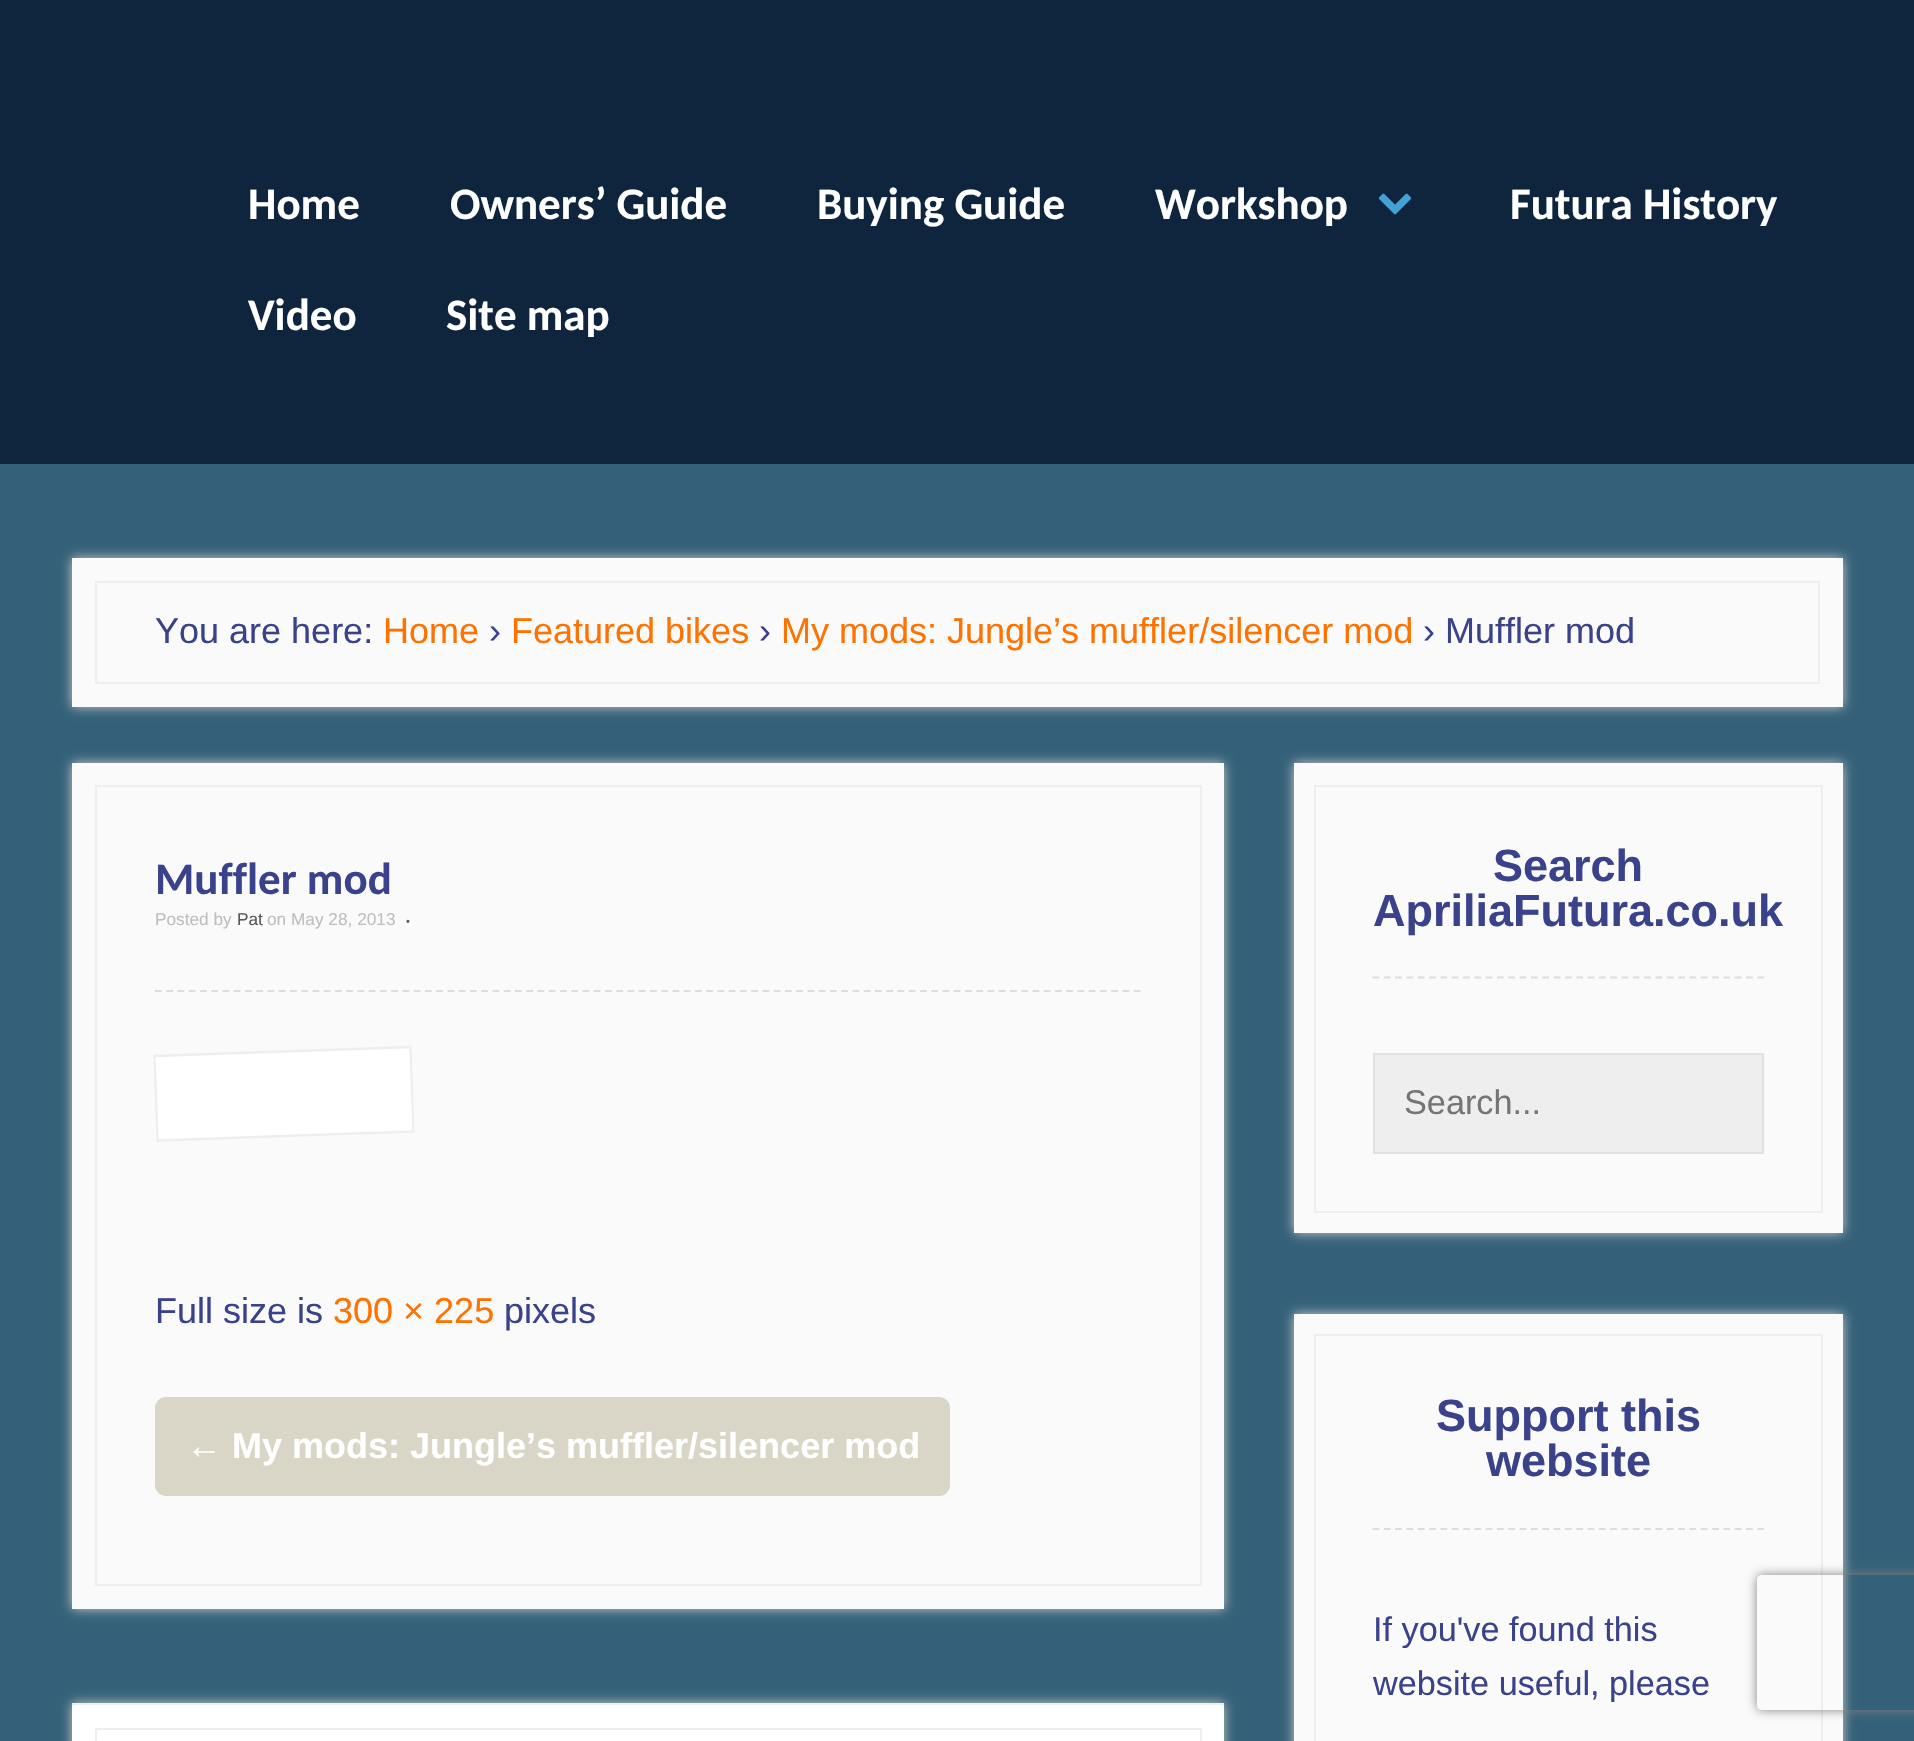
#include "include/core/SkBlurTypes.h"
#include "include/core/SkCanvas.h"
#include "include/core/SkData.h"
#include "include/core/SkFont.h"
#include "include/core/SkFontMgr.h"
#include "include/core/SkImage.h"
#include "include/core/SkMaskFilter.h"
#include "include/core/SkPaint.h"
#include "include/core/SkPathBuilder.h"
#include "include/core/SkTextBlob.h"
#include "include/effects/SkDashPathEffect.h"
#include "include/effects/SkGradientShader.h"
#include "include/utils/SkParsePath.h"

extern sk_sp<SkFontMgr> fontMgr;

static SkFont font(const char* family, int weight, float size, bool italic = false) {
    SkFontStyle style(weight, SkFontStyle::kNormal_Width,
        italic ? SkFontStyle::kItalic_Slant : SkFontStyle::kUpright_Slant);
    SkFont result(fontMgr->matchFamilyStyle(family, style), size);
    result.setSubpixel(true);
    return result;
}

static void drawLabel(SkCanvas* canvas, const char* s, float x, float y, const SkFont& font, SkColor color) {
    SkPaint ink(SkColor4f::FromColor(color));
    ink.setAntiAlias(true);
    canvas->drawString(s, x, y, font, ink);
}

static void fillRect(SkCanvas* canvas, float x, float y, float w, float h, SkColor color) {
    SkPaint ink(SkColor4f::FromColor(color));
    ink.setAntiAlias(true);
    canvas->drawRect(SkRect::MakeXYWH(x, y, w, h), ink);
}

static void fillRRect(SkCanvas* canvas, float x, float y, float w, float h, float radius, SkColor color) {
    SkPaint ink(SkColor4f::FromColor(color));
    ink.setAntiAlias(true);
    canvas->drawRoundRect(SkRect::MakeXYWH(x, y, w, h), radius, radius, ink);
}

static void drawPhoto(SkCanvas* canvas, const char* path, float x, float y, float w, float h) {
    auto image = SkImages::DeferredFromEncodedData(SkData::MakeFromFileName(path));
    canvas->drawImageRect(image, SkRect::MakeXYWH(x, y, w, h), SkSamplingOptions());
}

static SkPath parsePath(const char* data, bool evenOdd = false) {
    SkPath result = *SkParsePath::FromSVGString(data);
    if (evenOdd) result.setFillType(SkPathFillType::kEvenOdd);
    return result;
}

void draw(SkCanvas* canvas) {
    SkPaint paint;
    paint.setAntiAlias(true);
    canvas->clear(0xFF346179);
    fillRect(canvas, 0, 0, 1914, 464, 0xFF0F253D);
    SkFont font1 = font("Carlito", 700, 45);
    drawLabel(canvas, "Home", 248, 219, font1, 0xFFFFFFFF);
    drawLabel(canvas, "Owners’ Guide", 450, 219, font1, 0xFFFFFFFF);
    drawLabel(canvas, "Buying Guide", 817, 219, font1, 0xFFFFFFFF);
    drawLabel(canvas, "Workshop", 1155, 219, font1, 0xFFFFFFFF);
    drawPhoto(canvas, "assets/img1.png", 1378, 193, 34, 22);
    drawLabel(canvas, "Futura History", 1510, 219, font1, 0xFFFFFFFF);
    drawLabel(canvas, "Video", 248, 330, font1, 0xFFFFFFFF);
    drawLabel(canvas, "Site map", 446, 330, font1, 0xFFFFFFFF);
    paint.setColor(0xFFCCCCCC);
    paint.setMaskFilter(SkMaskFilter::MakeBlur(kNormal_SkBlurStyle, 5.5f));
    canvas->drawRect(SkRect::MakeXYWH(72, 558, 1771, 149), paint);
    paint.setMaskFilter(nullptr);
    fillRect(canvas, 72, 558, 1771, 149, 0xFFFAFAFA);
    paint.setStroke(true);
    paint.setStrokeWidth(2);
    paint.setColor(0xFFEEEEEE);
    canvas->drawRect(SkRect::MakeXYWH(96, 582, 1723, 101), paint);
    SkFont font2 = font("Liberation Sans", 400, 36);
    drawLabel(canvas, "You are here:", 155, 643, font2, 0xFF3A428C);
    drawLabel(canvas, "Home", 383, 643, font2, 0xFFFF7200);
    drawLabel(canvas, "›", 489, 643, font2, 0xFF3A428C);
    drawLabel(canvas, "Featured bikes", 511, 643, font2, 0xFFFF7200);
    drawLabel(canvas, "›", 759, 643, font2, 0xFF3A428C);
    drawLabel(canvas, "My mods: Jungle’s muffler/silencer mod", 781, 643, font2, 0xFFFF7200);
    drawLabel(canvas, "› Muffler mod", 1423, 643, font2, 0xFF3A428C);
    paint.setStroke(false);
    paint.setColor(0xFFCCCCCC);
    paint.setMaskFilter(SkMaskFilter::MakeBlur(kNormal_SkBlurStyle, 5.5f));
    canvas->drawRect(SkRect::MakeXYWH(72, 763, 1152, 846), paint);
    paint.setMaskFilter(nullptr);
    fillRect(canvas, 72, 763, 1152, 846, 0xFFFAFAFA);
    paint.setStroke(true);
    paint.setColor(0xFFEEEEEE);
    canvas->drawRect(SkRect::MakeXYWH(96, 786, 1105, 799), paint);
    paint.setStrokeWidth(2.2f);
    paint.setColor(0xFFDDDDDD);
    paint.setPathEffect(SkDashPathEffect::Make({{6.75f, 4.5f}}, 0));
    canvas->drawPath(parsePath("M155 991H1141"), paint);
    paint.setPathEffect(nullptr);
    drawLabel(canvas, "Muffler mod", 155, 894, font1, 0xFF3A428C);
    SkFont font3 = font("Liberation Sans", 400, 17.25f);
    drawLabel(canvas, "Posted by", 155, 925, font3, 0xFFBEBEBE);
    drawLabel(canvas, "Pat", 237, 925, font3, 0xFF585858);
    drawLabel(canvas, "on May 28, 2013", 267, 925, font3, 0xFFBEBEBE);
    SkFont font4 = font("Liberation Sans", 400, 11);
    drawLabel(canvas, "•", 406, 925, font4, 0xFF585858);
    paint.setStroke(false);
    paint.setColor(0xFFFFFFFF);
    canvas->drawPath(parsePath("M153 1055L412 1046L415 1132L156 1141Z"), paint);
    paint.setStroke(true);
    paint.setStrokeWidth(2.3f);
    paint.setColor(0xFFEEEEEE);
    canvas->drawPath(parsePath("M154.5 1056L410.5 1047L413.5 1131.5L157.5 1140.5Z"), paint);
    drawLabel(canvas, "Full size is", 155, 1323, font2, 0xFF3A428C);
    drawLabel(canvas, "300 × 225", 333, 1323, font2, 0xFFFF7200);
    drawLabel(canvas, "pixels", 504, 1323, font2, 0xFF3A428C);
    fillRRect(canvas, 155, 1397, 795, 99, 11, 0xFFD9D6C8);
    SkFont font5 = font("Liberation Sans", 700, 36);
    drawLabel(canvas, "← My mods: Jungle’s muffler/silencer mod", 186, 1458, font5, 0xFFFFFFFF);
    paint.setStroke(false);
    paint.setColor(0xFFCCCCCC);
    paint.setMaskFilter(SkMaskFilter::MakeBlur(kNormal_SkBlurStyle, 5.5f));
    canvas->drawRect(SkRect::MakeXYWH(72, 1703, 1152, 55), paint);
    paint.setMaskFilter(nullptr);
    fillRect(canvas, 72, 1705, 1152, 36, 0xFFFFFFFF);
    fillRect(canvas, 72, 1703, 1152, 2, 0xFFEEEEEE);
    paint.setStroke(true);
    paint.setStrokeWidth(2);
    paint.setColor(0xFFEEEEEE);
    canvas->drawRect(SkRect::MakeXYWH(96, 1729, 1105, 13), paint);
    paint.setStroke(false);
    paint.setColor(0xFFCCCCCC);
    paint.setMaskFilter(SkMaskFilter::MakeBlur(kNormal_SkBlurStyle, 5.5f));
    canvas->drawRect(SkRect::MakeXYWH(1294, 763, 549, 470), paint);
    paint.setMaskFilter(nullptr);
    fillRect(canvas, 1294, 763, 549, 470, 0xFFFAFAFA);
    paint.setStroke(true);
    paint.setColor(0xFFEEEEEE);
    canvas->drawRect(SkRect::MakeXYWH(1315, 786, 507, 426), paint);
    paint.setStrokeWidth(2.2f);
    paint.setColor(0xFFDDDDDD);
    paint.setPathEffect(SkDashPathEffect::Make({{6.75f, 4.57f}}, 0));
    canvas->drawPath(parsePath("M1372.5 977.5H1764"), paint);
    paint.setPathEffect(nullptr);
    SkFont font6 = font("Liberation Sans", 700, 45);
    drawLabel(canvas, "Search", 1493, 881, font6, 0xFF3A428C);
    drawLabel(canvas, "ApriliaFutura.co.uk", 1373, 926, font6, 0xFF3A428C);
    paint.setStroke(false);
    paint.setColor(0xFFEEEEEE);
    canvas->drawRect(SkRect::MakeXYWH(1374, 1054, 389, 99), paint);
    paint.setStroke(true);
    paint.setStrokeWidth(2);
    paint.setColor(0xFFE1E1E1);
    canvas->drawRect(SkRect::MakeXYWH(1374, 1054, 389, 99), paint);
    SkFont font7 = font("Liberation Sans", 400, 34.25f);
    drawLabel(canvas, "Search...", 1404, 1114, font7, 0xFF757575);
    paint.setStroke(false);
    paint.setColor(0xFFCCCCCC);
    paint.setMaskFilter(SkMaskFilter::MakeBlur(kNormal_SkBlurStyle, 5.5f));
    canvas->drawRect(SkRect::MakeXYWH(1294, 1314, 549, 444), paint);
    paint.setMaskFilter(nullptr);
    fillRect(canvas, 1294, 1314, 549, 427, 0xFFFAFAFA);
    paint.setStroke(true);
    paint.setColor(0xFFEEEEEE);
    canvas->drawRect(SkRect::MakeXYWH(1315, 1335, 507, 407), paint);
    paint.setStrokeWidth(2.2f);
    paint.setColor(0xFFDDDDDD);
    paint.setPathEffect(SkDashPathEffect::Make({{6.75f, 4.57f}}, 0));
    canvas->drawPath(parsePath("M1372.5 1529H1764"), paint);
    paint.setPathEffect(nullptr);
    drawLabel(canvas, "Support this", 1436, 1431, font6, 0xFF3A428C);
    drawLabel(canvas, "website", 1486, 1476, font6, 0xFF3A428C);
    drawLabel(canvas, "If you've found this", 1373, 1641, font7, 0xFF3A428C);
    drawLabel(canvas, "website useful, please", 1373, 1695, font7, 0xFF3A428C);
    canvas->save();
    canvas->clipPath(parsePath("M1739 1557H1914V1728H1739ZM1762 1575H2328C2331 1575 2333 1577 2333 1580V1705C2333 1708 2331 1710 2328 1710H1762C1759 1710 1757 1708 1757 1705V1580C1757 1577 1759 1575 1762 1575Z", true), true);
    paint.setStroke(false);
    paint.setColor(0xFF808080);
    paint.setMaskFilter(SkMaskFilter::MakeBlur(kNormal_SkBlurStyle, 5.5f));
    canvas->drawRoundRect(SkRect::MakeXYWH(1757, 1575, 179, 135), 5, 5, paint);
    paint.setMaskFilter(nullptr);
    canvas->restore();
}
